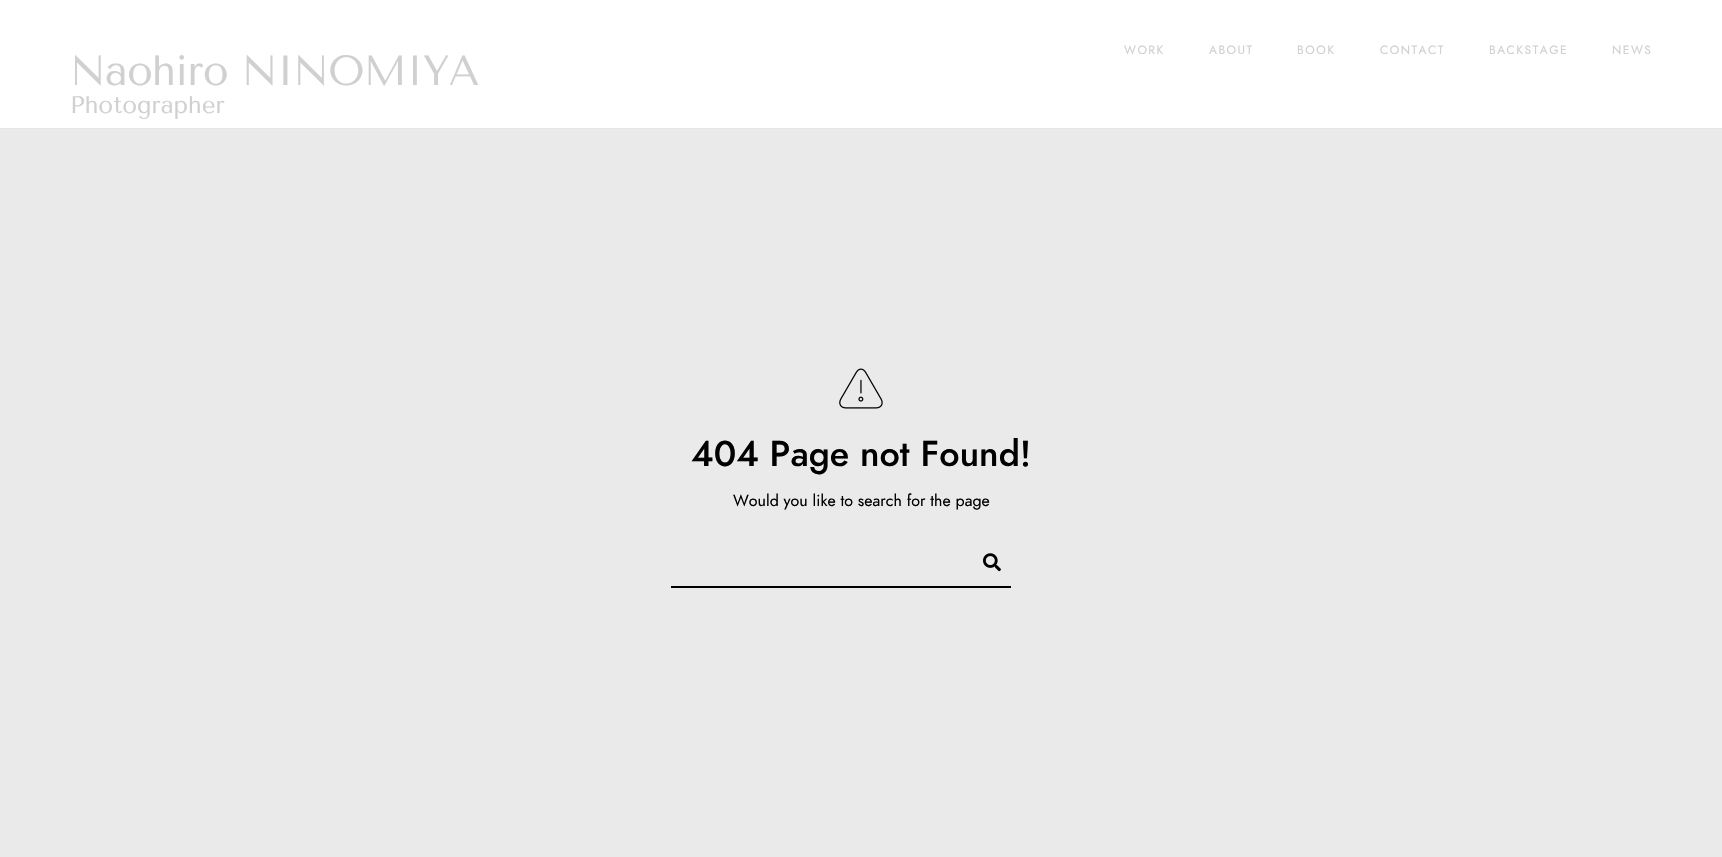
#include "include/core/SkBlurTypes.h"
#include "include/core/SkCanvas.h"
#include "include/core/SkData.h"
#include "include/core/SkFont.h"
#include "include/core/SkFontMgr.h"
#include "include/core/SkImage.h"
#include "include/core/SkMaskFilter.h"
#include "include/core/SkPaint.h"
#include "include/core/SkPathBuilder.h"
#include "include/core/SkTextBlob.h"
#include "include/effects/SkDashPathEffect.h"
#include "include/effects/SkGradientShader.h"
#include "include/utils/SkParsePath.h"

extern sk_sp<SkFontMgr> fontMgr;

static SkFont font(const char* family, int weight, float size, bool italic = false) {
    SkFontStyle style(weight, SkFontStyle::kNormal_Width,
        italic ? SkFontStyle::kItalic_Slant : SkFontStyle::kUpright_Slant);
    SkFont result(fontMgr->matchFamilyStyle(family, style), size);
    result.setSubpixel(true);
    return result;
}

static void drawLabel(SkCanvas* canvas, const char* s, float x, float y, const SkFont& font, SkColor color) {
    SkPaint ink(SkColor4f::FromColor(color));
    ink.setAntiAlias(true);
    canvas->drawString(s, x, y, font, ink);
}

static void drawTracked(SkCanvas* canvas, const char* s, float x, float y, const SkFont& font, const SkPaint& ink, float letter, float word) {
    std::vector<SkGlyphID> glyphs(font.countText(s, strlen(s), SkTextEncoding::kUTF8));
    std::vector<float> xs(glyphs.size());
    font.textToGlyphs(s, strlen(s), SkTextEncoding::kUTF8, glyphs);
    font.getXPos(glyphs, xs, x);
    float extra = 0;
    for (size_t i = 0; i < glyphs.size(); i++) {
        xs[i] += extra;
        extra += letter + word * (glyphs[i] == font.unicharToGlyph(' '));
    }
    canvas->drawTextBlob(SkTextBlob::MakeFromPosHGlyphs(glyphs, xs, y, font), 0, 0, ink);
}

static void fillRect(SkCanvas* canvas, float x, float y, float w, float h, SkColor color) {
    SkPaint ink(SkColor4f::FromColor(color));
    ink.setAntiAlias(true);
    canvas->drawRect(SkRect::MakeXYWH(x, y, w, h), ink);
}

static void drawPhoto(SkCanvas* canvas, const char* path, float x, float y, float w, float h) {
    auto image = SkImages::DeferredFromEncodedData(SkData::MakeFromFileName(path));
    canvas->drawImageRect(image, SkRect::MakeXYWH(x, y, w, h), SkSamplingOptions());
}

void draw(SkCanvas* canvas) {
    SkPaint paint;
    paint.setAntiAlias(true);
    canvas->clear(0xFFEAEAEA);
    fillRect(canvas, 0, 0, 1722, 128, 0xFFFFFFFF);
    fillRect(canvas, 0, 128, 1722, 1, 0xFFE6E6E6);
    SkFont font1 = font("Jost", 400, 12);
    paint.setColor(0xFFD0D0D0);
    drawTracked(canvas, "WORK", 1124, 54, font1, paint, 1.5f, 0);
    drawTracked(canvas, "ABOUT", 1209, 54, font1, paint, 1.5f, 0);
    drawTracked(canvas, "BOOK", 1297, 54, font1, paint, 1.5f, 0);
    drawTracked(canvas, "CONTACT", 1380, 54, font1, paint, 1.5f, 0);
    drawTracked(canvas, "BACKSTAGE", 1489, 54, font1, paint, 1.5f, 0);
    drawTracked(canvas, "NEWS", 1612, 54, font1, paint, 1.5f, 0);
    SkFont font2 = font("Tenor Sans", 400, 42);
    drawTracked(canvas, "Naohiro NINOMIYA", 70, 85, font2, paint, -0.75f, 0);
    SkFont font3 = font("Tenor Sans", 400, 24);
    drawLabel(canvas, "Photographer", 70, 113, font3, 0xFFD0D0D0);
    drawPhoto(canvas, "assets/img1.png", 839, 368, 44, 41);
    SkFont font4 = font("Jost", 500, 36);
    drawLabel(canvas, "404 Page not Found!", 691, 466, font4, 0xFF000000);
    SkFont font5 = font("Jost", 400, 16);
    drawLabel(canvas, "Would you like to search for the page", 733, 506, font5, 0xFF000000);
    drawPhoto(canvas, "assets/img2.png", 983, 553, 18, 19);
    fillRect(canvas, 671, 586, 340, 2, 0xFF000000);
}
